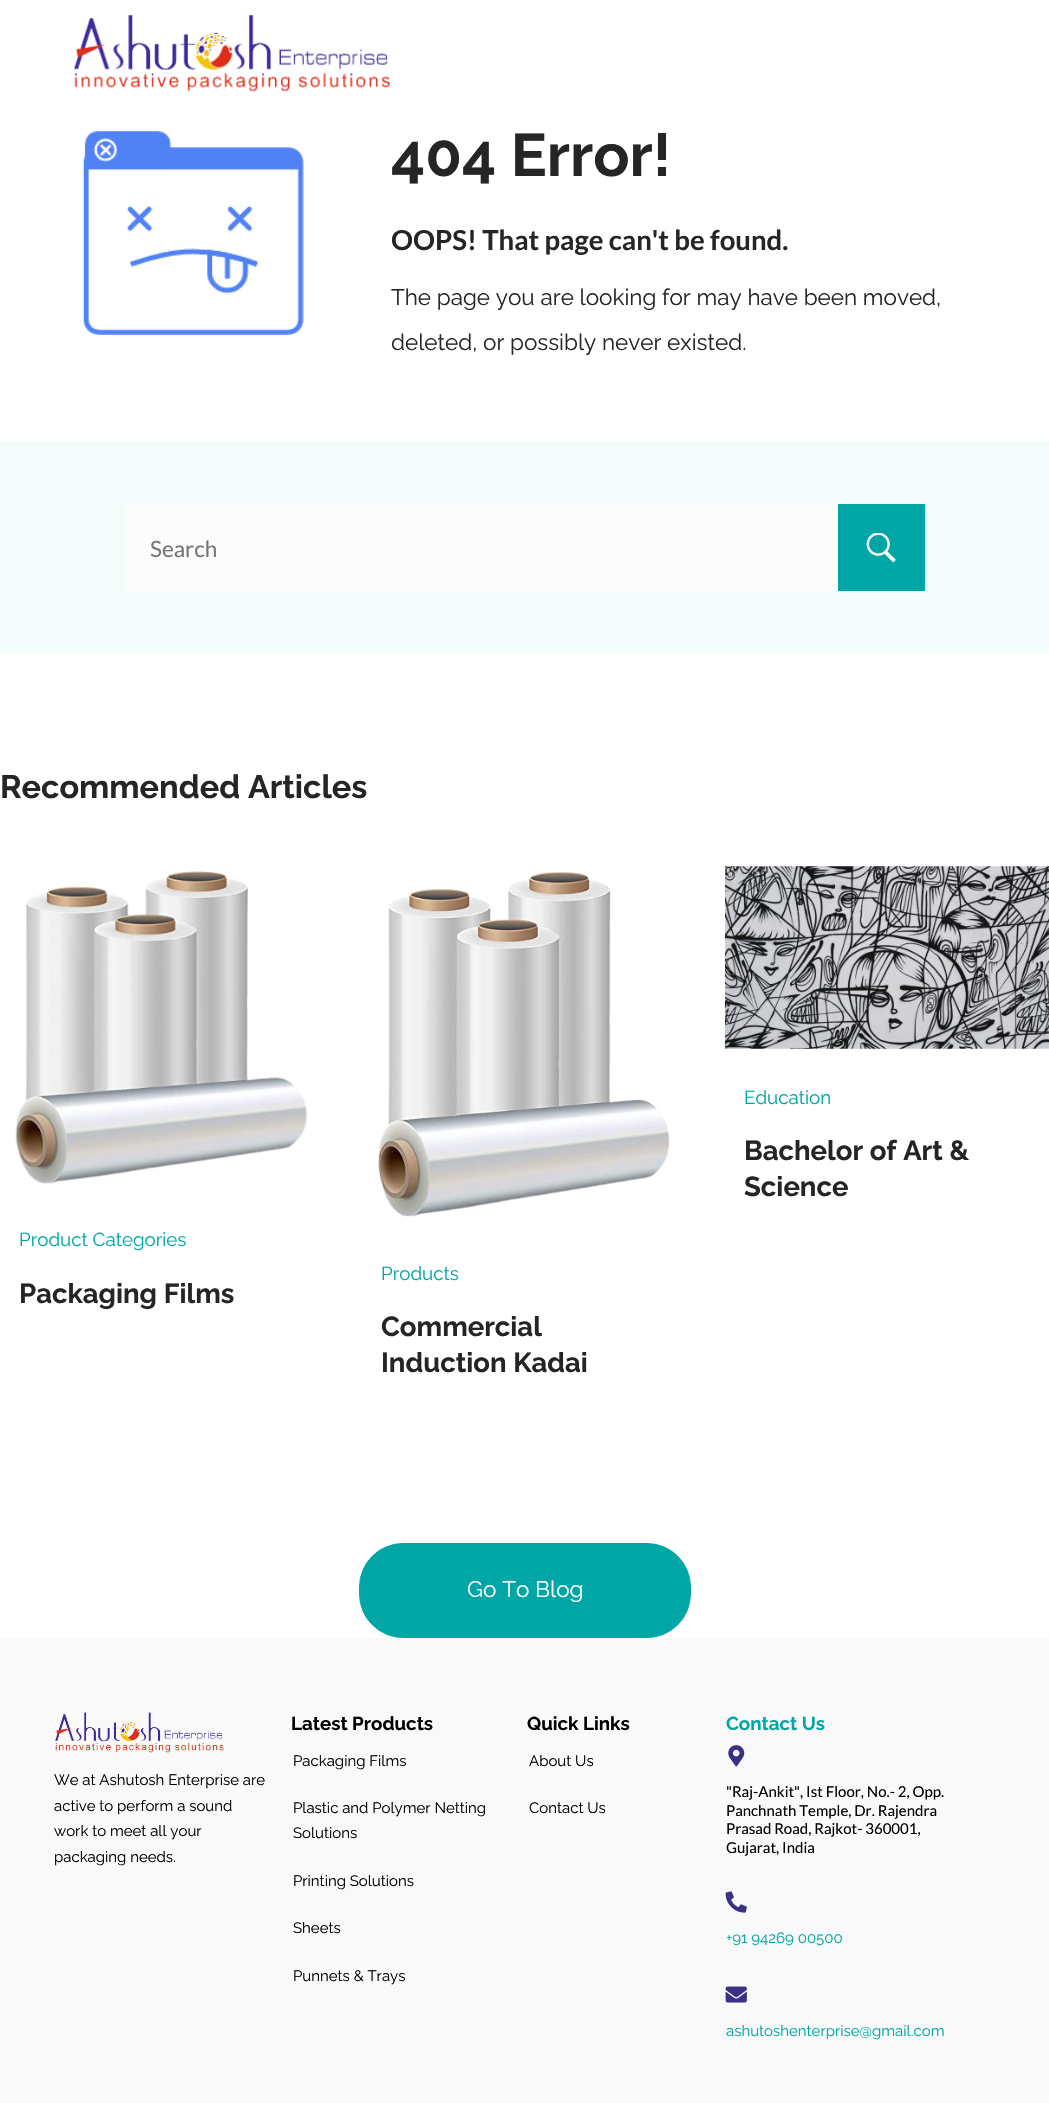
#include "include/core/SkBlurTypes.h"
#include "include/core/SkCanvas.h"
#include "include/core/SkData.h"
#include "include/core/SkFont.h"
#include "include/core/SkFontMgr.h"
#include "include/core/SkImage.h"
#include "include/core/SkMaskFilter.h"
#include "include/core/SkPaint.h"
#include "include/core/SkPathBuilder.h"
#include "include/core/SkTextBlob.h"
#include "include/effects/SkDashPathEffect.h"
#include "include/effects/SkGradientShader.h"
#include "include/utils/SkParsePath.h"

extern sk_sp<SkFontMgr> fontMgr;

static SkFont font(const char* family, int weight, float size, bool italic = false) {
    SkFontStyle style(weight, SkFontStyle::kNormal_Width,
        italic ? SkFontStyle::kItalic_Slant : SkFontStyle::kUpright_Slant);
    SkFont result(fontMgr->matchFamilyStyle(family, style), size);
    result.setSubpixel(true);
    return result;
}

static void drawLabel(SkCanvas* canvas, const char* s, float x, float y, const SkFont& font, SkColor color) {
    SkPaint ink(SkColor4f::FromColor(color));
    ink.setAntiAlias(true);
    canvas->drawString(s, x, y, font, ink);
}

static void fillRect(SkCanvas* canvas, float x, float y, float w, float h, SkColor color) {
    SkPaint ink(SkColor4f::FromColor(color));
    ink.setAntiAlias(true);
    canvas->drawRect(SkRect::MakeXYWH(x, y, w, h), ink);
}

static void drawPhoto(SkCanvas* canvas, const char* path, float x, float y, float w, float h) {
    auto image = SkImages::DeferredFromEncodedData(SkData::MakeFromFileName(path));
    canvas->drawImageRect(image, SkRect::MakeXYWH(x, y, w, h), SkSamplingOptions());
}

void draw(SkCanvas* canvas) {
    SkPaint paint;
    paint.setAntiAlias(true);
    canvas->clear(0xFFFFFFFF);
    drawPhoto(canvas, "assets/img1.png", 73, 15, 317, 77);
    drawPhoto(canvas, "assets/img2.png", 83, 131, 221, 204);
    SkFont font1 = font("Raleway", 700, 60);
    drawLabel(canvas, "404 Error!", 391, 176, font1, 0xFF252525);
    SkFont font2 = font("Lato", 700, 27.5f);
    drawLabel(canvas, "OOPS! That page can't be found.", 391, 250, font2, 0xFF252525);
    SkFont font3 = font("Raleway", 400, 22.5f);
    drawLabel(canvas, "The page you are looking for may have been moved,", 391, 305, font3, 0xFF252525);
    drawLabel(canvas, "deleted, or possibly never existed.", 391, 350, font3, 0xFF252525);
    fillRect(canvas, 0, 441, 1049, 213, 0xFFF5FCFC);
    fillRect(canvas, 125, 504, 713, 87, 0xFFFCFCFC);
    SkFont font4 = font("Lato", 400, 22.5f);
    drawLabel(canvas, "Search", 150, 557, font4, 0xFF757575);
    fillRect(canvas, 838, 504, 87, 87, 0xFF00A6A6);
    drawPhoto(canvas, "assets/img3.png", 866, 533, 30, 30);
    SkFont font5 = font("Raleway", 700, 32.5f);
    drawLabel(canvas, "Recommended Articles", 0, 798, font5, 0xFF252525);
    drawPhoto(canvas, "assets/img4.png", 725, 866, 324, 183);
    SkFont font6 = font("Raleway", 400, 18.75f);
    drawLabel(canvas, "Education", 744, 1104, font6, 0xFF00A6A6);
    SkFont font7 = font("Raleway", 700, 27.5f);
    drawLabel(canvas, "Bachelor of Art &", 744, 1160, font7, 0xFF252525);
    drawLabel(canvas, "Science", 744, 1196, font7, 0xFF252525);
    drawPhoto(canvas, "assets/img5.png", 15, 871, 292, 313);
    drawLabel(canvas, "Product Categories", 19, 1246, font6, 0xFF00A6A6);
    drawLabel(canvas, "Packaging Films", 19, 1303, font7, 0xFF252525);
    drawPhoto(canvas, "assets/img6.png", 378, 871, 292, 346);
    drawLabel(canvas, "Products", 381, 1280, font6, 0xFF00A6A6);
    drawLabel(canvas, "Commercial", 381, 1336, font7, 0xFF252525);
    drawLabel(canvas, "Induction Kadai", 381, 1372, font7, 0xFF252525);
    paint.setColor(0xFF00A6A6);
    canvas->drawRoundRect(SkRect::MakeXYWH(359.5f, 1543.5f, 331, 94), 43.5f, 43.5f, paint);
    paint.setStroke(true);
    paint.setStrokeWidth(1);
    canvas->drawRoundRect(SkRect::MakeXYWH(359.5f, 1543.5f, 331, 94), 43.5f, 43.5f, paint);
    drawLabel(canvas, "Go To Blog", 467, 1597, font3, 0xFFFFFFFF);
    fillRect(canvas, 0, 1638, 1049, 465, 0xFFF9F9F9);
    drawPhoto(canvas, "assets/img7.png", 55, 1712, 169, 41);
    SkFont font8 = font("Raleway", 400, 15);
    drawLabel(canvas, "We at Ashutosh Enterprise are", 54, 1785, font8, 0xFF000000);
    drawLabel(canvas, "active to perform a sound", 54, 1811, font8, 0xFF000000);
    drawLabel(canvas, "work to meet all your", 54, 1836, font8, 0xFF000000);
    drawLabel(canvas, "packaging needs.", 54, 1862, font8, 0xFF000000);
    SkFont font9 = font("Raleway", 700, 18.75f);
    drawLabel(canvas, "Latest Products", 291, 1730, font9, 0xFF000000);
    drawLabel(canvas, "Packaging Films", 293, 1766, font8, 0xFF000000);
    drawLabel(canvas, "Plastic and Polymer Netting", 293, 1813, font8, 0xFF000000);
    drawLabel(canvas, "Solutions", 293, 1838, font8, 0xFF000000);
    drawLabel(canvas, "Printing Solutions", 293, 1886, font8, 0xFF000000);
    drawLabel(canvas, "Sheets", 293, 1933, font8, 0xFF000000);
    drawLabel(canvas, "Punnets & Trays", 293, 1981, font8, 0xFF000000);
    drawLabel(canvas, "Quick Links", 527, 1730, font9, 0xFF000000);
    drawLabel(canvas, "About Us", 529, 1766, font8, 0xFF000000);
    drawLabel(canvas, "Contact Us", 529, 1813, font8, 0xFF000000);
    drawLabel(canvas, "Contact Us", 726, 1730, font9, 0xFF00A6A6);
    drawPhoto(canvas, "assets/img8.png", 728, 1745, 17, 22);
    SkFont font10 = font("Lato", 400, 15);
    drawLabel(canvas, "\"Raj-Ankit\", Ist Floor, No.- 2, Opp.", 726, 1797, font10, 0xFF000000);
    drawLabel(canvas, "Panchnath Temple, Dr. Rajendra", 726, 1816, font10, 0xFF000000);
    drawLabel(canvas, "Prasad Road, Rajkot- 360001,", 726, 1834, font10, 0xFF000000);
    drawLabel(canvas, "Gujarat, India", 726, 1853, font10, 0xFF000000);
    drawPhoto(canvas, "assets/img9.png", 725, 1891, 22, 22);
    drawLabel(canvas, "+91 94269 00500", 726, 1943, font8, 0xFF00A6A6);
    drawPhoto(canvas, "assets/img10.png", 725, 1986, 22, 17);
    drawLabel(canvas, "ashutoshenterprise@gmail.com", 726, 2036, font8, 0xFF00A6A6);
}
